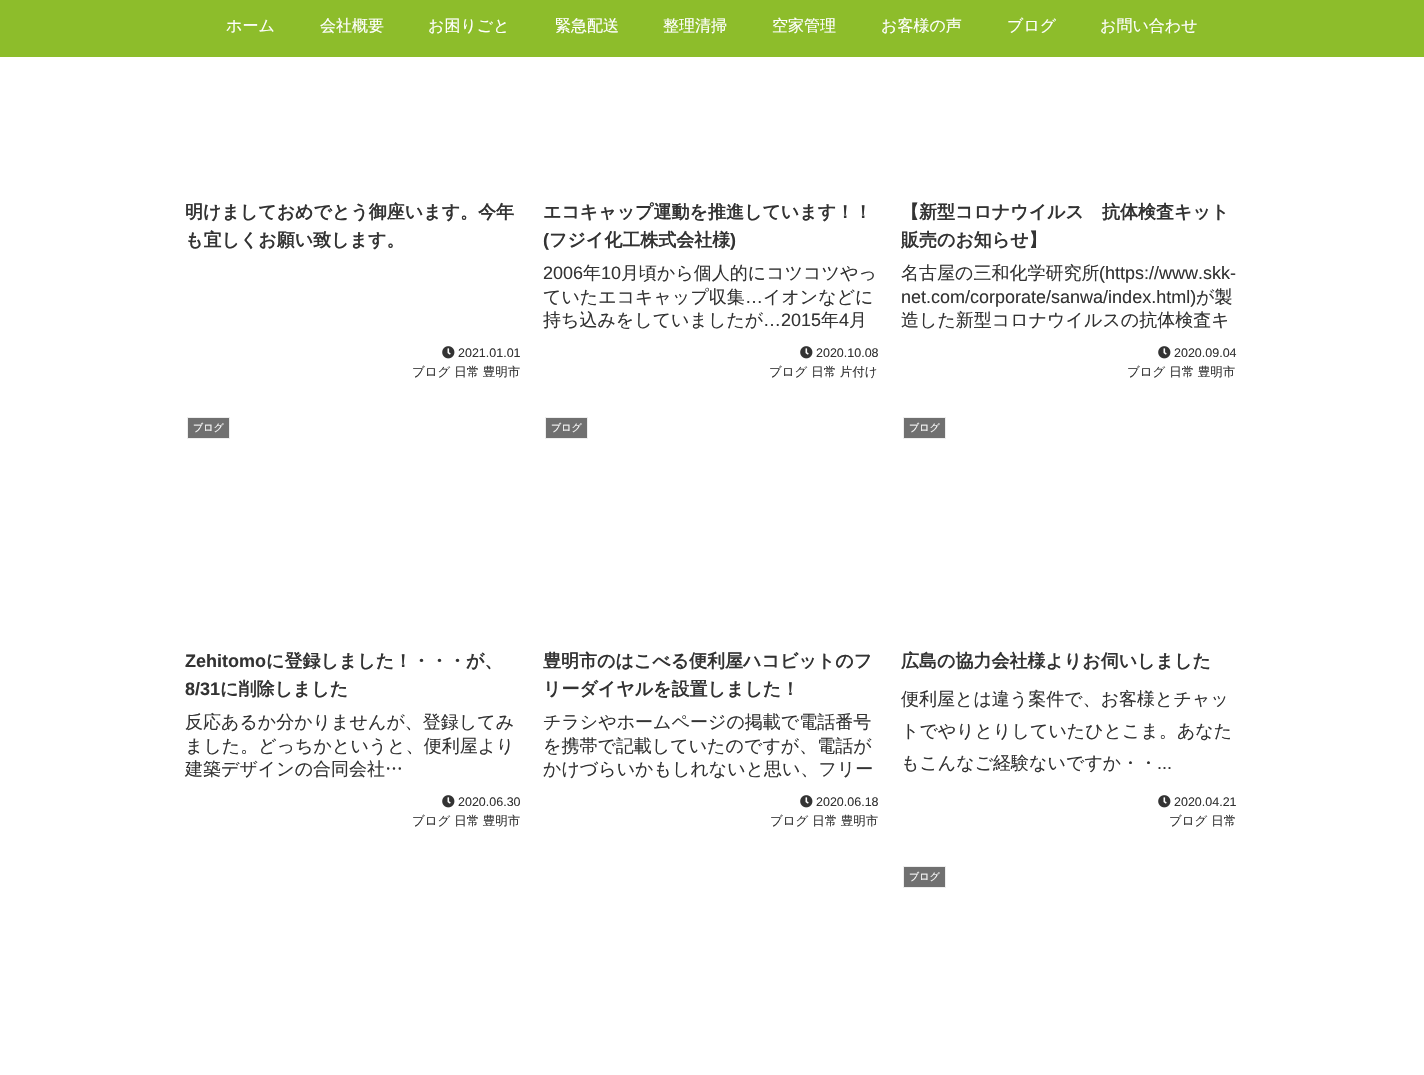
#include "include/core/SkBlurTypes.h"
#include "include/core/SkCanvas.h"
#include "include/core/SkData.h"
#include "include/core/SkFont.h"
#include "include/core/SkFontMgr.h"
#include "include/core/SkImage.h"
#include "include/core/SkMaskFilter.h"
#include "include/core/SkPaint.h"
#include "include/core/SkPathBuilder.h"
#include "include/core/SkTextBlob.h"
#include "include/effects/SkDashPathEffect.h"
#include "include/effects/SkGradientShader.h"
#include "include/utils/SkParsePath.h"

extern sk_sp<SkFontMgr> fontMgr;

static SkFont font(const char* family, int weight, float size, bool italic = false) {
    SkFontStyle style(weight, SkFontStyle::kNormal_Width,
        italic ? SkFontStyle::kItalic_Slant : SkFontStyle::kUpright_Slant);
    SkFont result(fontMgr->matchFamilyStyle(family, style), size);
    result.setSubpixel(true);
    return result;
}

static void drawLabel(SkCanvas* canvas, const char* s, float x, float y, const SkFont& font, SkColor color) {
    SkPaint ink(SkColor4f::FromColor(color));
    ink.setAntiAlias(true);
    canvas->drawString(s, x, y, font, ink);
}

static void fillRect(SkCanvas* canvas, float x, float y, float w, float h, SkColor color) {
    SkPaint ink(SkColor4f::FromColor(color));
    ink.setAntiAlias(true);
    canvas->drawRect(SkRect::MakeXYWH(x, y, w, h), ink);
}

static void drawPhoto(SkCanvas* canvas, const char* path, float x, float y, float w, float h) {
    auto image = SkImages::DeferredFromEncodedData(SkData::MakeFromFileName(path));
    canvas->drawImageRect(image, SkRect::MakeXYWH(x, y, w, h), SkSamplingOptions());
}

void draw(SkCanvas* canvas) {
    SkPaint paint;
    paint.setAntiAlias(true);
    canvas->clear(0xFFFFFFFF);
    fillRect(canvas, 0, 0, 1424, 57, 0xFF8DBD2B);
    SkFont font1 = font("WenQuanYi Zen Hei", 500, 16);
    drawLabel(canvas, "ホーム", 226, 31, font1, 0xFFFFFFFF);
    drawLabel(canvas, "会社概要", 320, 31, font1, 0xFFFFFFFF);
    drawLabel(canvas, "お困りごと", 428, 31, font1, 0xFFFFFFFF);
    drawLabel(canvas, "緊急配送", 555, 31, font1, 0xFFFFFFFF);
    drawLabel(canvas, "整理清掃", 663, 31, font1, 0xFFFFFFFF);
    drawLabel(canvas, "空家管理", 772, 31, font1, 0xFFFFFFFF);
    drawLabel(canvas, "お客様の声", 881, 31, font1, 0xFFFFFFFF);
    drawLabel(canvas, "ブログ", 1007, 31, font1, 0xFFFFFFFF);
    drawLabel(canvas, "お問い合わせ", 1100, 31, font1, 0xFFFFFFFF);
    SkFont font2 = font("WenQuanYi Zen Hei", 700, 18);
    drawLabel(canvas, "明けましておめでとう御座います。今年", 185, 218, font2, 0xFF333333);
    drawLabel(canvas, "も宜しくお願い致します。", 185, 246, font2, 0xFF333333);
    drawPhoto(canvas, "assets/img1.png", 442, 346, 13, 13);
    SkFont font3 = font("Liberation Sans", 400, 12.5f);
    drawLabel(canvas, "2021.01.01", 458, 357, font3, 0xFF333333);
    SkFont font4 = font("WenQuanYi Zen Hei", 500, 12.5f);
    drawLabel(canvas, "ブログ 日常 豊明市", 412, 376, font4, 0xFF333333);
    drawLabel(canvas, "エコキャップ運動を推進しています！！", 543, 218, font2, 0xFF333333);
    SkFont font5 = font("Liberation Sans", 700, 18);
    drawLabel(canvas, "(", 543, 246, font5, 0xFF333333);
    drawLabel(canvas, "フジイ化工株式会社様", 549, 246, font2, 0xFF333333);
    drawLabel(canvas, ")", 730, 246, font5, 0xFF333333);
    SkFont font6 = font("Liberation Sans", 400, 18);
    drawLabel(canvas, "2006", 543, 279, font6, 0xFF333333);
    SkFont font7 = font("WenQuanYi Zen Hei", 500, 18);
    drawLabel(canvas, "年", 583, 279, font7, 0xFF333333);
    drawLabel(canvas, "10", 601, 279, font6, 0xFF333333);
    drawLabel(canvas, "月頃から個人的にコツコツやっ", 621, 279, font7, 0xFF333333);
    drawLabel(canvas, "ていたエコキャップ収集", 543, 303, font7, 0xFF333333);
    drawLabel(canvas, "…", 745, 303, font6, 0xFF333333);
    drawLabel(canvas, "イオンなどに", 763, 303, font7, 0xFF333333);
    drawLabel(canvas, "持ち込みをしていましたが", 543, 326, font7, 0xFF333333);
    drawLabel(canvas, "…2015", 763, 326, font6, 0xFF333333);
    drawLabel(canvas, "年", 821, 326, font7, 0xFF333333);
    drawLabel(canvas, "4", 839, 326, font6, 0xFF333333);
    drawLabel(canvas, "月", 849, 326, font7, 0xFF333333);
    drawPhoto(canvas, "assets/img1.png", 800, 346, 13, 13);
    drawLabel(canvas, "2020.10.08", 816, 357, font3, 0xFF333333);
    drawLabel(canvas, "ブログ 日常 片付け", 769, 376, font4, 0xFF333333);
    drawLabel(canvas, "【新型コロナウイルス　抗体検査キット", 901, 218, font2, 0xFF333333);
    drawLabel(canvas, "販売のお知らせ】", 901, 246, font2, 0xFF333333);
    drawLabel(canvas, "名古屋の三和化学研究所", 901, 279, font7, 0xFF333333);
    drawLabel(canvas, "(https://www.skk-", 1099, 279, font6, 0xFF333333);
    drawLabel(canvas, "net.com/corporate/sanwa/index.html)", 901, 303, font6, 0xFF333333);
    drawLabel(canvas, "が製", 1196, 303, font7, 0xFF333333);
    drawLabel(canvas, "造した新型コロナウイルスの抗体検査キ", 901, 326, font7, 0xFF333333);
    drawPhoto(canvas, "assets/img1.png", 1158, 346, 13, 13);
    drawLabel(canvas, "2020.09.04", 1174, 357, font3, 0xFF333333);
    drawLabel(canvas, "ブログ 日常 豊明市", 1127, 376, font4, 0xFF333333);
    paint.setColor(0xFF707070);
    canvas->drawRect(SkRect::MakeXYWH(187.5f, 417.5f, 42, 21), paint);
    paint.setStroke(true);
    paint.setStrokeWidth(1);
    paint.setColor(0xFFEEEEEE);
    canvas->drawRect(SkRect::MakeXYWH(187.5f, 417.5f, 42, 21), paint);
    SkFont font8 = font("WenQuanYi Zen Hei", 500, 10);
    drawLabel(canvas, "ブログ", 193, 431, font8, 0xFFFFFFFF);
    drawLabel(canvas, "Zehitomo", 185, 667, font5, 0xFF333333);
    drawLabel(canvas, "に登録しました！・・・が、", 266, 667, font2, 0xFF333333);
    drawLabel(canvas, "8/31", 185, 695, font5, 0xFF333333);
    drawLabel(canvas, "に削除しました", 220, 695, font2, 0xFF333333);
    drawLabel(canvas, "反応あるか分かりませんが、登録してみ", 185, 728, font7, 0xFF333333);
    drawLabel(canvas, "ました。どっちかというと、便利屋より", 185, 752, font7, 0xFF333333);
    drawLabel(canvas, "建築デザインの合同会社…", 185, 775, font7, 0xFF333333);
    drawPhoto(canvas, "assets/img1.png", 442, 795, 13, 13);
    drawLabel(canvas, "2020.06.30", 458, 806, font3, 0xFF333333);
    drawLabel(canvas, "ブログ 日常 豊明市", 412, 825, font4, 0xFF333333);
    paint.setStroke(false);
    paint.setColor(0xFF707070);
    canvas->drawRect(SkRect::MakeXYWH(545.5f, 417.5f, 42, 21), paint);
    paint.setStroke(true);
    paint.setColor(0xFFEEEEEE);
    canvas->drawRect(SkRect::MakeXYWH(545.5f, 417.5f, 42, 21), paint);
    drawLabel(canvas, "ブログ", 551, 431, font8, 0xFFFFFFFF);
    drawLabel(canvas, "豊明市のはこべる便利屋ハコビットのフ", 543, 667, font2, 0xFF333333);
    drawLabel(canvas, "リーダイヤルを設置しました！", 543, 695, font2, 0xFF333333);
    drawLabel(canvas, "チラシやホームページの掲載で電話番号", 543, 728, font7, 0xFF333333);
    drawLabel(canvas, "を携帯で記載していたのですが、電話が", 543, 752, font7, 0xFF333333);
    drawLabel(canvas, "かけづらいかもしれないと思い、フリー", 543, 775, font7, 0xFF333333);
    drawPhoto(canvas, "assets/img1.png", 800, 795, 13, 13);
    drawLabel(canvas, "2020.06.18", 816, 806, font3, 0xFF333333);
    drawLabel(canvas, "ブログ 日常 豊明市", 770, 825, font4, 0xFF333333);
    paint.setStroke(false);
    paint.setColor(0xFF707070);
    canvas->drawRect(SkRect::MakeXYWH(903.5f, 417.5f, 42, 21), paint);
    paint.setStroke(true);
    paint.setColor(0xFFEEEEEE);
    canvas->drawRect(SkRect::MakeXYWH(903.5f, 417.5f, 42, 21), paint);
    drawLabel(canvas, "ブログ", 909, 431, font8, 0xFFFFFFFF);
    drawLabel(canvas, "広島の協力会社様よりお伺いしました", 901, 667, font2, 0xFF333333);
    drawLabel(canvas, "便利屋とは違う案件で、お客様とチャッ", 901, 705, font7, 0xFF333333);
    drawLabel(canvas, "トでやりとりしていたひとこま。あなた", 901, 737, font7, 0xFF333333);
    drawLabel(canvas, "もこんなご経験ないですか・・", 901, 769, font7, 0xFF333333);
    drawLabel(canvas, "...", 1157, 769, font6, 0xFF333333);
    drawPhoto(canvas, "assets/img1.png", 1158, 795, 13, 13);
    drawLabel(canvas, "2020.04.21", 1174, 806, font3, 0xFF333333);
    drawLabel(canvas, "ブログ 日常", 1169, 825, font4, 0xFF333333);
    paint.setStroke(false);
    paint.setColor(0xFF707070);
    canvas->drawRect(SkRect::MakeXYWH(903.5f, 866.5f, 42, 21), paint);
    paint.setStroke(true);
    paint.setColor(0xFFEEEEEE);
    canvas->drawRect(SkRect::MakeXYWH(903.5f, 866.5f, 42, 21), paint);
    drawLabel(canvas, "ブログ", 909, 880, font8, 0xFFFFFFFF);
}
